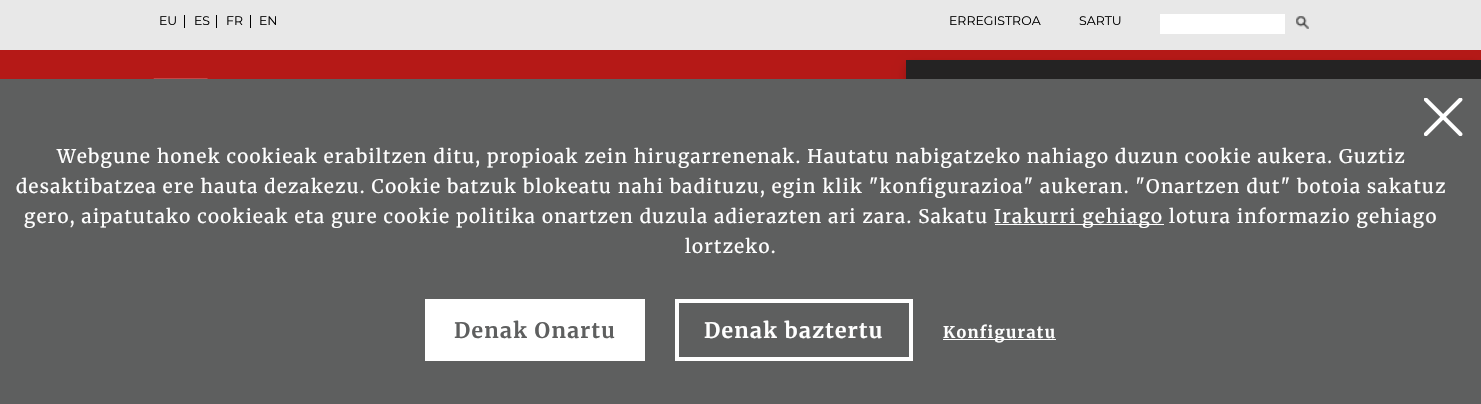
#include "include/core/SkBlurTypes.h"
#include "include/core/SkCanvas.h"
#include "include/core/SkData.h"
#include "include/core/SkFont.h"
#include "include/core/SkFontMgr.h"
#include "include/core/SkImage.h"
#include "include/core/SkMaskFilter.h"
#include "include/core/SkPaint.h"
#include "include/core/SkPathBuilder.h"
#include "include/core/SkTextBlob.h"
#include "include/effects/SkDashPathEffect.h"
#include "include/effects/SkGradientShader.h"
#include "include/utils/SkParsePath.h"

extern sk_sp<SkFontMgr> fontMgr;

static SkFont font(const char* family, int weight, float size, bool italic = false) {
    SkFontStyle style(weight, SkFontStyle::kNormal_Width,
        italic ? SkFontStyle::kItalic_Slant : SkFontStyle::kUpright_Slant);
    SkFont result(fontMgr->matchFamilyStyle(family, style), size);
    result.setSubpixel(true);
    return result;
}

static void drawLabel(SkCanvas* canvas, const char* s, float x, float y, const SkFont& font, SkColor color) {
    SkPaint ink(SkColor4f::FromColor(color));
    ink.setAntiAlias(true);
    canvas->drawString(s, x, y, font, ink);
}

static void drawTracked(SkCanvas* canvas, const char* s, float x, float y, const SkFont& font, const SkPaint& ink, float letter, float word) {
    std::vector<SkGlyphID> glyphs(font.countText(s, strlen(s), SkTextEncoding::kUTF8));
    std::vector<float> xs(glyphs.size());
    font.textToGlyphs(s, strlen(s), SkTextEncoding::kUTF8, glyphs);
    font.getXPos(glyphs, xs, x);
    float extra = 0;
    for (size_t i = 0; i < glyphs.size(); i++) {
        xs[i] += extra;
        extra += letter + word * (glyphs[i] == font.unicharToGlyph(' '));
    }
    canvas->drawTextBlob(SkTextBlob::MakeFromPosHGlyphs(glyphs, xs, y, font), 0, 0, ink);
}

static void fillRect(SkCanvas* canvas, float x, float y, float w, float h, SkColor color) {
    SkPaint ink(SkColor4f::FromColor(color));
    ink.setAntiAlias(true);
    canvas->drawRect(SkRect::MakeXYWH(x, y, w, h), ink);
}

static void drawPhoto(SkCanvas* canvas, const char* path, float x, float y, float w, float h) {
    auto image = SkImages::DeferredFromEncodedData(SkData::MakeFromFileName(path));
    canvas->drawImageRect(image, SkRect::MakeXYWH(x, y, w, h), SkSamplingOptions());
}

void draw(SkCanvas* canvas) {
    SkPaint paint;
    paint.setAntiAlias(true);
    canvas->clear(0xFFE8E8E8);
    fillRect(canvas, 184, 15, 1, 13, 0xFF000000);
    SkFont font1 = font("Montserrat", 400, 12.5f);
    drawLabel(canvas, "EU", 159, 25, font1, 0xFF000000);
    fillRect(canvas, 216, 15, 1, 13, 0xFF000000);
    drawLabel(canvas, "ES", 194, 25, font1, 0xFF000000);
    fillRect(canvas, 250, 15, 1, 13, 0xFF000000);
    drawLabel(canvas, "FR", 226, 25, font1, 0xFF000000);
    drawLabel(canvas, "EN", 259, 25, font1, 0xFF000000);
    drawLabel(canvas, "ERREGISTROA", 949, 25, font1, 0xFF000000);
    drawLabel(canvas, "SARTU", 1079, 25, font1, 0xFF000000);
    fillRect(canvas, 1160, 14, 125, 20, 0xFFFFFFFF);
    drawPhoto(canvas, "assets/img1.png", 1296, 16, 13, 13);
    fillRect(canvas, 0, 50, 1481, 29, 0xFFB51917);
    drawPhoto(canvas, "assets/img2.png", 153, 78, 55, 1);
    paint.setColor(0x33000000);
    paint.setMaskFilter(SkMaskFilter::MakeBlur(kNormal_SkBlurStyle, 5));
    canvas->drawRect(SkRect::MakeXYWH(906, 65, 575, 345), paint);
    paint.setMaskFilter(nullptr);
    fillRect(canvas, 906, 60, 575, 19, 0xFF242323);
    fillRect(canvas, 0, 79, 1481, 325, 0xFF5E5F5F);
    drawPhoto(canvas, "assets/img3.png", 1424, 98, 39, 38);
    SkFont font2 = font("Merriweather", 400, 18.75f);
    paint.setColor(0xFFFFFFFF);
    drawTracked(canvas, "Webgune honek cookieak erabiltzen ditu, propioak zein hirugarrenenak. Hautatu nabigatzeko nahiago duzun cookie aukera. Guztiz", 57, 163, font2, paint, 1.3f, 0);
    drawTracked(canvas, "desaktibatzea ere hauta dezakezu. Cookie batzuk blokeatu nahi badituzu, egin klik \"konfigurazioa\" aukeran. \"Onartzen dut\" botoia sakatuz", 16, 193, font2, paint, 1.3f, 0);
    drawTracked(canvas, "gero, aipatutako cookieak eta gure cookie politika onartzen duzula adierazten ari zara. Sakatu", 24, 223, font2, paint, 1.3f, 0);
    fillRect(canvas, 995, 224, 169, 1, 0xFFFFFFFF);
    drawTracked(canvas, "Irakurri gehiago lotura informazio gehiago", 994, 223, font2, paint, 1.3f, 0);
    drawTracked(canvas, "lortzeko.", 685, 253, font2, paint, 1.3f, 0);
    fillRect(canvas, 425, 299, 220, 62, 0xFFFFFFFF);
    SkFont font3 = font("Merriweather", 700, 21.25f);
    paint.setColor(0xFF5E5F5F);
    drawTracked(canvas, "Denak Onartu", 454, 338, font3, paint, 1.3f, 0);
    paint.setStroke(true);
    paint.setStrokeWidth(4);
    paint.setColor(0xFFFFFFFF);
    canvas->drawRect(SkRect::MakeXYWH(677, 301, 234, 58), paint);
    paint.setStroke(false);
    drawTracked(canvas, "Denak baztertu", 704, 338, font3, paint, 1.3f, 0);
    fillRect(canvas, 943, 339, 113, 1, 0xFFFFFFFF);
    SkFont font4 = font("Merriweather", 700, 16.25f);
    drawTracked(canvas, "Konfiguratu", 943, 338, font4, paint, 1.3f, 0);
}
